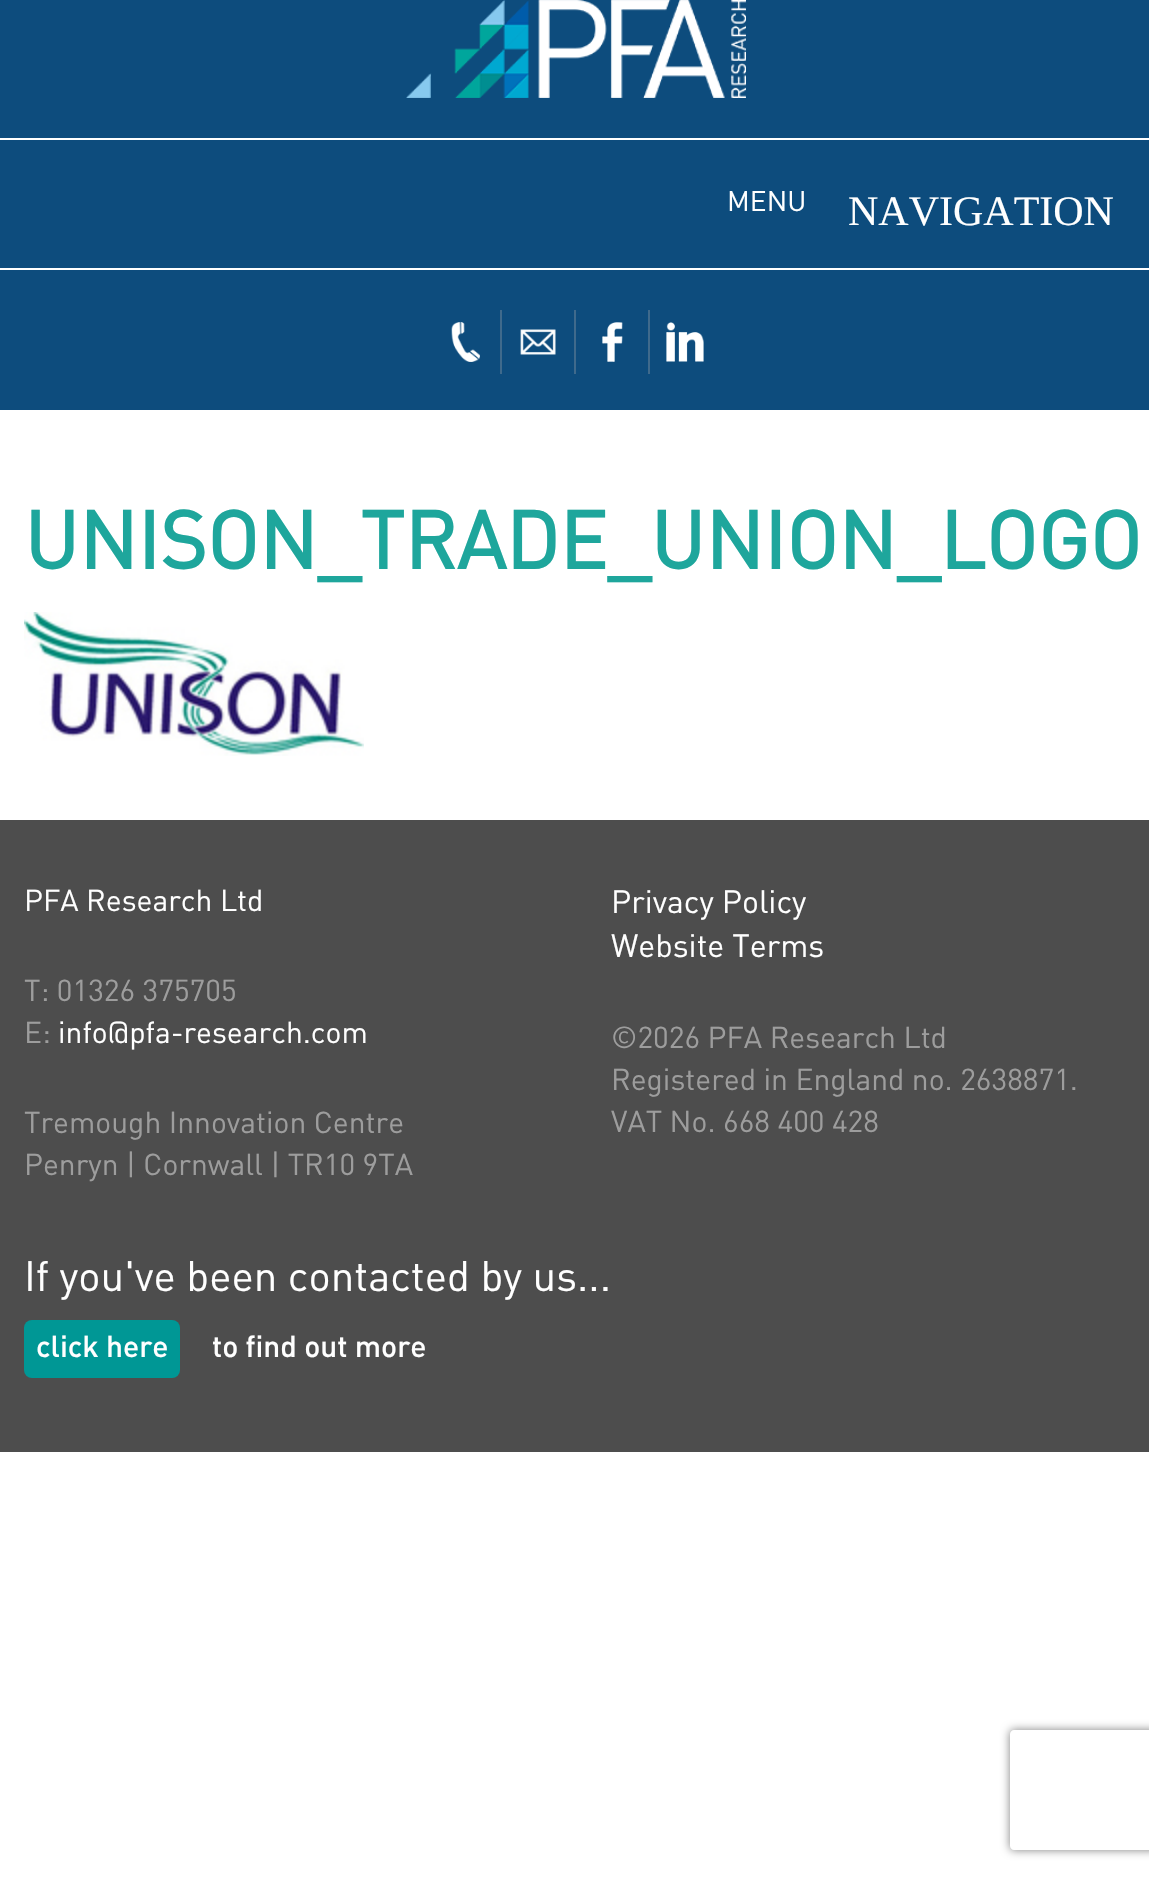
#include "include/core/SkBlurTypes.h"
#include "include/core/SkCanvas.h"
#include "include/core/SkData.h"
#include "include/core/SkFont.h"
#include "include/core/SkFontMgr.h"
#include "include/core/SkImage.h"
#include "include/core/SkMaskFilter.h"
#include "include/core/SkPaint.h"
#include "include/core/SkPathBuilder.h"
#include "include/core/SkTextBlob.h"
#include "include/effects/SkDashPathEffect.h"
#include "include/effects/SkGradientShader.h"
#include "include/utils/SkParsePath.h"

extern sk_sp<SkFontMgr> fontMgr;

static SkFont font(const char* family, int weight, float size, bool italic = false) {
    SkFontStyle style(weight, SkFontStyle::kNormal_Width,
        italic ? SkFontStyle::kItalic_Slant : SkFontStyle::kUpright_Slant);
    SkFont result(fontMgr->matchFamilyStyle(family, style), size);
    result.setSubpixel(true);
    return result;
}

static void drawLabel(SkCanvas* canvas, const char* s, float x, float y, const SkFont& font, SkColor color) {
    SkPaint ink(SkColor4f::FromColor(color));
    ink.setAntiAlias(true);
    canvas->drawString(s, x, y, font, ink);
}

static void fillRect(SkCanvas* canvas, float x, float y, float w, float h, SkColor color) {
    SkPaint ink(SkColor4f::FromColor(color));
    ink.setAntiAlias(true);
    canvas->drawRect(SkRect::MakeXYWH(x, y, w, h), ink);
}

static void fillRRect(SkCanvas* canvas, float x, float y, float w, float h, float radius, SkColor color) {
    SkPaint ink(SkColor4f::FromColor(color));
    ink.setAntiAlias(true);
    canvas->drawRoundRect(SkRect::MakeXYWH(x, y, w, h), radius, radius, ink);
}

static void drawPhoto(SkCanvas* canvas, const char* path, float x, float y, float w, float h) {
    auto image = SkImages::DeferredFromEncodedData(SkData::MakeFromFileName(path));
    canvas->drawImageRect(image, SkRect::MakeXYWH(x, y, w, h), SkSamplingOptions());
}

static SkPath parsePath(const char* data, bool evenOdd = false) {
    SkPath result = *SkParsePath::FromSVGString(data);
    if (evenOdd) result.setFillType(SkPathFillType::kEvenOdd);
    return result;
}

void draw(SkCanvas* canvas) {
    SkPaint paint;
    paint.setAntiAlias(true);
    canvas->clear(0xFFFFFFFF);
    fillRect(canvas, 0, 0, 1149, 410, 0xFF0D4C7D);
    drawPhoto(canvas, "assets/img1.png", 406, 0, 340, 98);
    paint.setColor(0xFFFFFFFF);
    canvas->drawPath(parsePath("M-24 138H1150V140H0Z"), paint);
    canvas->drawPath(parsePath("M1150 270H-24L0 268H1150Z"), paint);
    SkFont font1 = font("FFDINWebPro", 400, 28);
    drawLabel(canvas, "MENU", 727, 211, font1, 0xFFFFFFFF);
    SkFont font2 = font("Liberation Serif", 400, 42);
    drawLabel(canvas, "NAVIGATION", 848, 225, font2, 0xFFFFFFFF);
    drawPhoto(canvas, "assets/img2.png", 451, 322, 29, 40);
    fillRect(canvas, 500, 310, 2, 64, 0xFF3F6A8C);
    drawPhoto(canvas, "assets/img3.png", 520, 329, 36, 26);
    fillRect(canvas, 574, 310, 2, 64, 0xFF3F6A8C);
    drawPhoto(canvas, "assets/img4.png", 602, 322, 21, 40);
    fillRect(canvas, 648, 310, 2, 64, 0xFF3F6A8C);
    drawPhoto(canvas, "assets/img5.png", 666, 322, 38, 40);
    SkFont font3 = font("FFDINWebPro", 700, 80);
    drawLabel(canvas, "UNISON_TRADE_UNION_LOGO", 24, 569, font3, 0xFF1EA69C);
    drawPhoto(canvas, "assets/img6.png", 24, 612, 340, 144);
    fillRect(canvas, 0, 820, 1149, 632, 0xFF4D4D4D);
    SkFont font4 = font("FFDINWebPro", 400, 30);
    drawLabel(canvas, "PFA Research Ltd", 24, 911, font4, 0xFFFFFFFF);
    drawLabel(canvas, "T: 01326 375705", 24, 1001, font4, 0xFF9D9D9D);
    drawLabel(canvas, "E:", 24, 1043, font4, 0xFF9D9D9D);
    drawLabel(canvas, "info@pfa-research.com", 58, 1043, font4, 0xFFFFFFFF);
    drawLabel(canvas, "Tremough Innovation Centre", 24, 1133, font4, 0xFF9D9D9D);
    drawLabel(canvas, "Penryn | Cornwall | TR10 9TA", 24, 1175, font4, 0xFF9D9D9D);
    SkFont font5 = font("FFDINWebPro", 400, 32);
    drawLabel(canvas, "Privacy Policy", 611, 913, font5, 0xFFFFFFFF);
    drawLabel(canvas, "Website Terms", 611, 957, font5, 0xFFFFFFFF);
    drawLabel(canvas, "©2026 PFA Research Ltd", 611, 1048, font4, 0xFF9D9D9D);
    drawLabel(canvas, "Registered in England no. 2638871.", 611, 1090, font4, 0xFF9D9D9D);
    drawLabel(canvas, "VAT No. 668 400 428", 611, 1132, font4, 0xFF9D9D9D);
    SkFont font6 = font("FFDINWebPro", 400, 42);
    drawLabel(canvas, "If you've been contacted by us...", 24, 1291, font6, 0xFFFFFFFF);
    fillRRect(canvas, 24, 1320, 156, 58, 8, 0xFF009795);
    SkFont font7 = font("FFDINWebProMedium", 400, 30);
    drawLabel(canvas, "click here", 36, 1357, font7, 0xFFFFFFFF);
    drawLabel(canvas, "to find out more", 212, 1357, font7, 0xFFFFFFFF);
    canvas->save();
    canvas->clipPath(parsePath("M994 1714H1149V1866H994ZM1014 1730H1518C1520 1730 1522 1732 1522 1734V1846C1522 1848 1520 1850 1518 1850H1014C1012 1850 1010 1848 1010 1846V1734C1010 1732 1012 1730 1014 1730Z", true), true);
    paint.setColor(0xFF808080);
    paint.setMaskFilter(SkMaskFilter::MakeBlur(kNormal_SkBlurStyle, 5));
    canvas->drawRoundRect(SkRect::MakeXYWH(1010, 1730, 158, 120), 4, 4, paint);
    paint.setMaskFilter(nullptr);
    canvas->restore();
}
